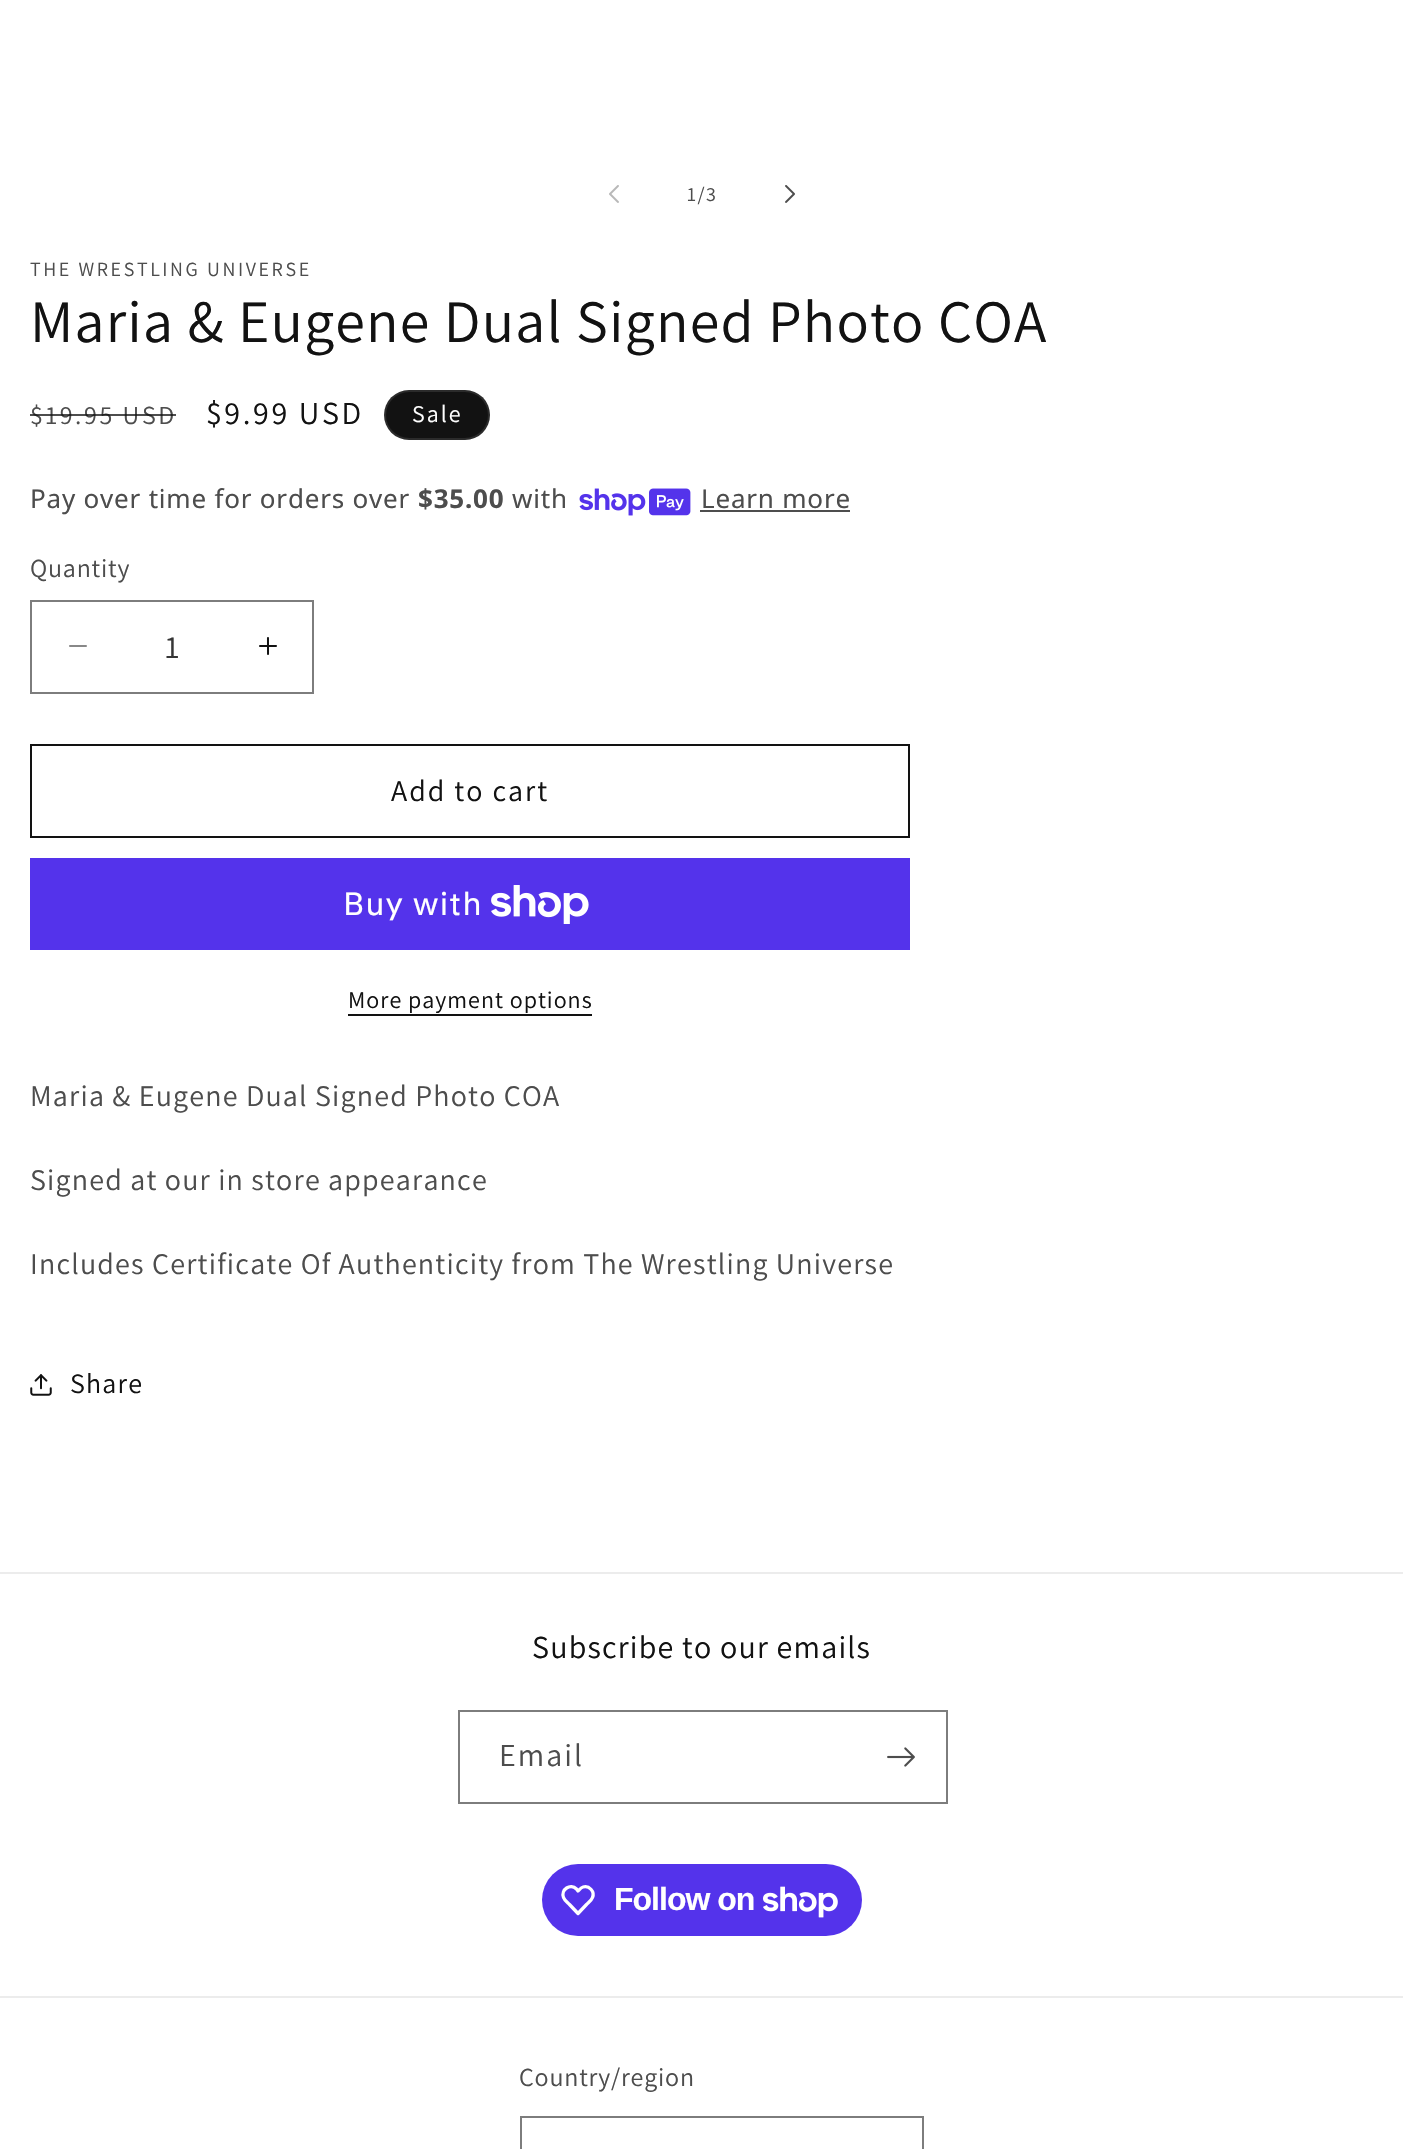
#include "include/core/SkBlurTypes.h"
#include "include/core/SkCanvas.h"
#include "include/core/SkData.h"
#include "include/core/SkFont.h"
#include "include/core/SkFontMgr.h"
#include "include/core/SkImage.h"
#include "include/core/SkMaskFilter.h"
#include "include/core/SkPaint.h"
#include "include/core/SkPathBuilder.h"
#include "include/core/SkTextBlob.h"
#include "include/effects/SkDashPathEffect.h"
#include "include/effects/SkGradientShader.h"
#include "include/utils/SkParsePath.h"

extern sk_sp<SkFontMgr> fontMgr;

static SkFont font(const char* family, int weight, float size, bool italic = false) {
    SkFontStyle style(weight, SkFontStyle::kNormal_Width,
        italic ? SkFontStyle::kItalic_Slant : SkFontStyle::kUpright_Slant);
    SkFont result(fontMgr->matchFamilyStyle(family, style), size);
    result.setSubpixel(true);
    return result;
}

static void drawLabel(SkCanvas* canvas, const char* s, float x, float y, const SkFont& font, SkColor color) {
    SkPaint ink(SkColor4f::FromColor(color));
    ink.setAntiAlias(true);
    canvas->drawString(s, x, y, font, ink);
}

static void drawTracked(SkCanvas* canvas, const char* s, float x, float y, const SkFont& font, const SkPaint& ink, float letter, float word) {
    std::vector<SkGlyphID> glyphs(font.countText(s, strlen(s), SkTextEncoding::kUTF8));
    std::vector<float> xs(glyphs.size());
    font.textToGlyphs(s, strlen(s), SkTextEncoding::kUTF8, glyphs);
    font.getXPos(glyphs, xs, x);
    float extra = 0;
    for (size_t i = 0; i < glyphs.size(); i++) {
        xs[i] += extra;
        extra += letter + word * (glyphs[i] == font.unicharToGlyph(' '));
    }
    canvas->drawTextBlob(SkTextBlob::MakeFromPosHGlyphs(glyphs, xs, y, font), 0, 0, ink);
}

static void fillRect(SkCanvas* canvas, float x, float y, float w, float h, SkColor color) {
    SkPaint ink(SkColor4f::FromColor(color));
    ink.setAntiAlias(true);
    canvas->drawRect(SkRect::MakeXYWH(x, y, w, h), ink);
}

static void fillRRect(SkCanvas* canvas, float x, float y, float w, float h, float radius, SkColor color) {
    SkPaint ink(SkColor4f::FromColor(color));
    ink.setAntiAlias(true);
    canvas->drawRoundRect(SkRect::MakeXYWH(x, y, w, h), radius, radius, ink);
}

static void drawPhoto(SkCanvas* canvas, const char* path, float x, float y, float w, float h) {
    auto image = SkImages::DeferredFromEncodedData(SkData::MakeFromFileName(path));
    canvas->drawImageRect(image, SkRect::MakeXYWH(x, y, w, h), SkSamplingOptions());
}

static SkPath parsePath(const char* data, bool evenOdd = false) {
    SkPath result = *SkParsePath::FromSVGString(data);
    if (evenOdd) result.setFillType(SkPathFillType::kEvenOdd);
    return result;
}

void draw(SkCanvas* canvas) {
    SkPaint paint;
    paint.setAntiAlias(true);
    canvas->clear(0xFFFFFFFF);
    drawPhoto(canvas, "assets/img1.png", 609, 185, 10, 18);
    SkFont font1 = font("Assistant", 400, 20);
    paint.setColor(0xFF4D4D4D);
    drawTracked(canvas, "1/3", 687, 201, font1, paint, 1.5f, 0);
    drawPhoto(canvas, "assets/img2.png", 785, 185, 10, 18);
    drawTracked(canvas, "THE WRESTLING UNIVERSE", 30, 276, font1, paint, 2.6f, 0);
    SkFont font2 = font("Assistant", 400, 60);
    paint.setColor(0xFF121212);
    drawTracked(canvas, "Maria & Eugene Dual Signed Photo COA", 30, 342, font2, paint, 1.2f, 0);
    SkFont font3 = font("Assistant", 400, 26);
    paint.setColor(0xFF4D4D4D);
    drawTracked(canvas, "$19.95 USD", 30, 424, font3, paint, 2.6f, 0);
    fillRect(canvas, 30, 414, 146, 2, 0xBF121212);
    SkFont font4 = font("Assistant", 400, 32);
    paint.setColor(0xFF121212);
    drawTracked(canvas, "$9.99 USD", 206, 424, font4, paint, 2.6f, 0);
    fillRRect(canvas, 384, 390, 106, 50, 25, 0xFF121212);
    paint.setStroke(true);
    paint.setStrokeWidth(2);
    paint.setColor(0x1AFFFFFF);
    canvas->drawRoundRect(SkRect::MakeXYWH(385, 391, 104, 48), 24, 24, paint);
    SkFont font5 = font("Assistant", 400, 24);
    paint.setStroke(false);
    paint.setColor(0xFFFFFFFF);
    drawTracked(canvas, "Sale", 412, 422, font5, paint, 2, 0);
    SkFont font6 = font("Noto Sans", 400, 26);
    paint.setColor(0xFF4D4D4D);
    drawTracked(canvas, "Pay over time for orders over", 30, 508, font6, paint, 0.8f, 0);
    SkFont font7 = font("Noto Sans", 700, 26);
    drawTracked(canvas, "$35.00", 418, 508, font7, paint, 0.8f, 0);
    drawTracked(canvas, "with", 512, 508, font6, paint, 0.8f, 0);
    drawPhoto(canvas, "assets/img3.png", 579, 488, 112, 28);
    drawTracked(canvas, "Learn more", 701, 508, font6, paint, 0.8f, 0);
    fillRect(canvas, 700, 510, 150, 2, 0xFF4D4D4D);
    drawTracked(canvas, "Quantity", 30, 577, font3, paint, 0.8f, 0);
    drawPhoto(canvas, "assets/img4.png", 69, 645, 18, 2);
    drawPhoto(canvas, "assets/img5.png", 259, 637, 18, 18);
    paint.setStroke(true);
    paint.setColor(0xFF7D7D7D);
    canvas->drawRect(SkRect::MakeXYWH(31, 601, 282, 92), paint);
    drawLabel(canvas, "1", 165, 658, font4, 0xFF363636);
    paint.setColor(0xFF121212);
    canvas->drawRect(SkRect::MakeXYWH(31, 745, 878, 92), paint);
    SkFont font8 = font("Assistant", 400, 30);
    paint.setStroke(false);
    drawTracked(canvas, "Add to cart", 391, 801, font8, paint, 2, 0);
    fillRect(canvas, 30, 858, 880, 92, 0xFF5433EB);
    SkFont font9 = font("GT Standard", 400, 32);
    paint.setColor(0xFFFFFFFF);
    drawTracked(canvas, "Buy with", 343, 915, font9, paint, 1.2f, 0);
    drawPhoto(canvas, "assets/img6.png", 491, 885, 98, 39);
    paint.setColor(0xFF121212);
    drawTracked(canvas, "More payment options", 348, 1008, font5, paint, 1, 0);
    fillRect(canvas, 348, 1014, 244, 2, 0xFF121212);
    paint.setColor(0xFF4D4D4D);
    drawTracked(canvas, "Maria & Eugene Dual Signed Photo COA", 30, 1106, font8, paint, 1.2f, 0);
    drawTracked(canvas, "Signed at our in store appearance", 30, 1190, font8, paint, 1.2f, 0);
    drawTracked(canvas, "Includes Certificate Of Authenticity from The Wrestling Universe", 30, 1274, font8, paint, 1.2f, 0);
    drawPhoto(canvas, "assets/img7.png", 30, 1374, 22, 22);
    SkFont font10 = font("Assistant", 400, 28);
    paint.setColor(0xFF121212);
    drawTracked(canvas, "Share", 70, 1393, font10, paint, 1.2f, 0);
    fillRect(canvas, 0, 1572, 1403, 2, 0xFFECECEC);
    drawTracked(canvas, "Subscribe to our emails", 532, 1658, font4, paint, 1.2f, 0);
    paint.setStroke(true);
    paint.setColor(0xFF7D7D7D);
    canvas->drawRect(SkRect::MakeXYWH(459, 1711, 488, 92), paint);
    paint.setStroke(false);
    paint.setColor(0xFF4D4D4D);
    drawTracked(canvas, "Email", 499, 1766, font4, paint, 2, 0);
    drawPhoto(canvas, "assets/img8.png", 887, 1747, 28, 20);
    fillRRect(canvas, 542, 1864, 320, 72, 36, 0xFF5433EB);
    paint.setStroke(true);
    paint.setStrokeWidth(3.3f);
    paint.setStrokeJoin(SkPaint::kRound_Join);
    paint.setColor(0xFFFFFFFF);
    canvas->drawPath(parsePath("M576.5 1889L578 1891C579.5 1889.5 581 1887.5 583 1887C589 1885 595 1891.5 592.5 1897.5C591.5 1900.5 588.5 1902.5 586.5 1904.5L578 1913.5L569.5 1904.5C567.5 1902.5 564.5 1900.5 563.5 1897.5C560.5 1889.5 570.5 1883 576.5 1889Z"), paint);
    SkFont font11 = font("Liberation Sans", 700, 32);
    paint.setStroke(false);
    drawTracked(canvas, "Follow on", 614, 1910, font11, paint, -1, 0);
    drawPhoto(canvas, "assets/img9.png", 763, 1886, 75, 32);
    fillRect(canvas, 0, 1996, 1403, 2, 0xFFECECEC);
    paint.setColor(0xFF4D4D4D);
    drawTracked(canvas, "Country/region", 519, 2086, font3, paint, 0.8f, 0);
    paint.setStroke(true);
    paint.setStrokeWidth(2);
    paint.setStrokeJoin(SkPaint::kMiter_Join);
    paint.setColor(0xFF7D7D7D);
    canvas->drawRect(SkRect::MakeXYWH(521, 2117, 402, 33), paint);
}
